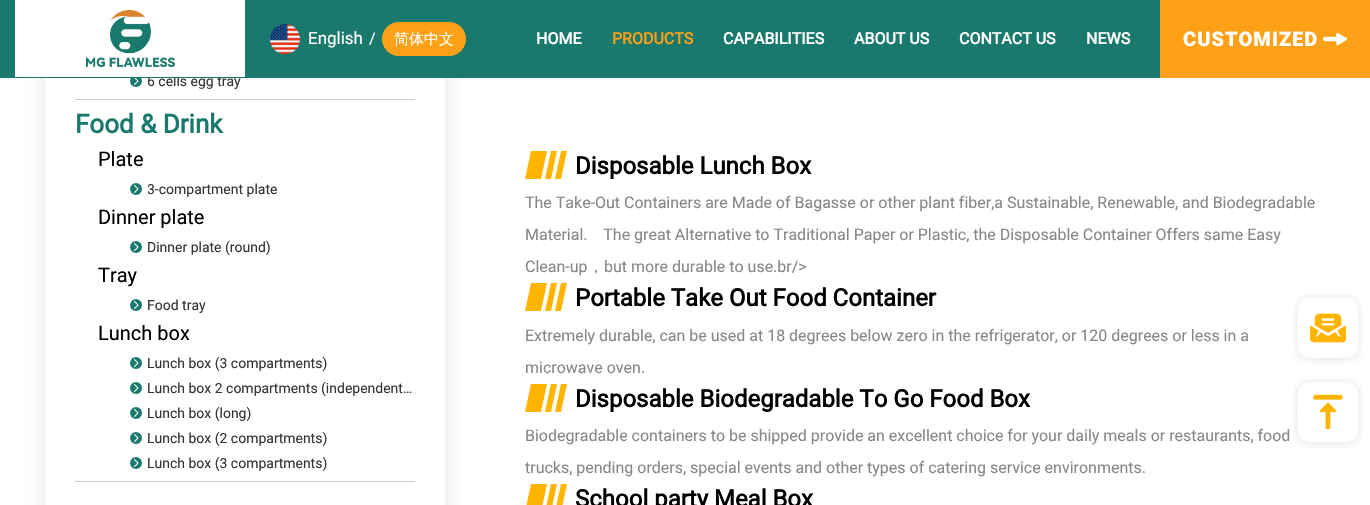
#include "include/core/SkBlurTypes.h"
#include "include/core/SkCanvas.h"
#include "include/core/SkData.h"
#include "include/core/SkFont.h"
#include "include/core/SkFontMgr.h"
#include "include/core/SkImage.h"
#include "include/core/SkMaskFilter.h"
#include "include/core/SkPaint.h"
#include "include/core/SkPathBuilder.h"
#include "include/core/SkTextBlob.h"
#include "include/effects/SkDashPathEffect.h"
#include "include/effects/SkGradientShader.h"
#include "include/utils/SkParsePath.h"

extern sk_sp<SkFontMgr> fontMgr;

static SkFont font(const char* family, int weight, float size, bool italic = false) {
    SkFontStyle style(weight, SkFontStyle::kNormal_Width,
        italic ? SkFontStyle::kItalic_Slant : SkFontStyle::kUpright_Slant);
    SkFont result(fontMgr->matchFamilyStyle(family, style), size);
    result.setSubpixel(true);
    return result;
}

static void drawLabel(SkCanvas* canvas, const char* s, float x, float y, const SkFont& font, SkColor color) {
    SkPaint ink(SkColor4f::FromColor(color));
    ink.setAntiAlias(true);
    canvas->drawString(s, x, y, font, ink);
}

static void drawTracked(SkCanvas* canvas, const char* s, float x, float y, const SkFont& font, const SkPaint& ink, float letter, float word) {
    std::vector<SkGlyphID> glyphs(font.countText(s, strlen(s), SkTextEncoding::kUTF8));
    std::vector<float> xs(glyphs.size());
    font.textToGlyphs(s, strlen(s), SkTextEncoding::kUTF8, glyphs);
    font.getXPos(glyphs, xs, x);
    float extra = 0;
    for (size_t i = 0; i < glyphs.size(); i++) {
        xs[i] += extra;
        extra += letter + word * (glyphs[i] == font.unicharToGlyph(' '));
    }
    canvas->drawTextBlob(SkTextBlob::MakeFromPosHGlyphs(glyphs, xs, y, font), 0, 0, ink);
}

static void fillRect(SkCanvas* canvas, float x, float y, float w, float h, SkColor color) {
    SkPaint ink(SkColor4f::FromColor(color));
    ink.setAntiAlias(true);
    canvas->drawRect(SkRect::MakeXYWH(x, y, w, h), ink);
}

static void fillRRect(SkCanvas* canvas, float x, float y, float w, float h, float radius, SkColor color) {
    SkPaint ink(SkColor4f::FromColor(color));
    ink.setAntiAlias(true);
    canvas->drawRoundRect(SkRect::MakeXYWH(x, y, w, h), radius, radius, ink);
}

static void drawPhoto(SkCanvas* canvas, const char* path, float x, float y, float w, float h) {
    auto image = SkImages::DeferredFromEncodedData(SkData::MakeFromFileName(path));
    canvas->drawImageRect(image, SkRect::MakeXYWH(x, y, w, h), SkSamplingOptions());
}

static SkPath parsePath(const char* data, bool evenOdd = false) {
    SkPath result = *SkParsePath::FromSVGString(data);
    if (evenOdd) result.setFillType(SkPathFillType::kEvenOdd);
    return result;
}

void draw(SkCanvas* canvas) {
    SkPaint paint;
    paint.setAntiAlias(true);
    canvas->clear(0xFFFFFFFF);
    canvas->save();
    canvas->clipPath(parsePath("M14 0H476V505H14ZM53-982H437C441.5-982 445-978.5 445-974V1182C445 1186.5 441.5 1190 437 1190H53C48.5 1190 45 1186.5 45 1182V-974C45-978.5 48.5-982 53-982Z", true), true);
    paint.setColor(0x1A000000);
    paint.setMaskFilter(SkMaskFilter::MakeBlur(kNormal_SkBlurStyle, 10));
    canvas->drawRoundRect(SkRect::MakeXYWH(45, -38, 400, 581), 8, 8, paint);
    paint.setMaskFilter(nullptr);
    canvas->restore();
    SkFont font1 = font("Roboto", 400, 14);
    drawLabel(canvas, "6 cells egg tray", 147, 86, font1, 0xFF333333);
    fillRect(canvas, 0, 0, 1160, 78, 0xFF1A796D);
    fillRect(canvas, 15, 0, 230, 77, 0xFFFFFFFF);
    drawPhoto(canvas, "assets/img1.png", 86, 10, 89, 57);
    drawPhoto(canvas, "assets/img2.png", 270, 24, 30, 30);
    SkFont font2 = font("Roboto", 400, 17);
    drawLabel(canvas, "English", 308, 44, font2, 0xFFFFFFFF);
    SkFont font3 = font("Roboto", 400, 16);
    drawLabel(canvas, "/", 369, 44, font3, 0xFFFFFFFF);
    fillRRect(canvas, 382, 22, 84, 34, 17, 0xFFFEA116);
    SkFont font4 = font("WenQuanYi Zen Hei", 500, 15);
    drawLabel(canvas, "简体中文", 394, 44, font4, 0xFFFFFFFF);
    SkFont font5 = font("Roboto", 700, 16);
    drawLabel(canvas, "HOME", 536, 44, font5, 0xFFFFFFFF);
    drawLabel(canvas, "PRODUCTS", 612, 44, font5, 0xFFFEA116);
    drawLabel(canvas, "CAPABILITIES", 723, 44, font5, 0xFFFFFFFF);
    drawLabel(canvas, "ABOUT US", 854, 44, font5, 0xFFFFFFFF);
    drawLabel(canvas, "CONTACT US", 959, 44, font5, 0xFFFFFFFF);
    drawLabel(canvas, "NEWS", 1086, 44, font5, 0xFFFFFFFF);
    fillRect(canvas, 1160, 0, 210, 78, 0xFFFEA116);
    SkFont font6 = font("Roboto", 900, 20);
    paint.setColor(0xFFFFFFFF);
    drawTracked(canvas, "CUSTOMIZED", 1183, 46, font6, paint, 1, 0);
    drawPhoto(canvas, "assets/img3.png", 1323, 32, 24, 14);
    fillRect(canvas, 75, 99, 340, 1, 0xFFCCCCCC);
    drawPhoto(canvas, "assets/img4.png", 130, 78, 12, 9);
    fillRect(canvas, 75, 481, 340, 1, 0xFFCCCCCC);
    SkFont font7 = font("Roboto", 700, 26);
    drawLabel(canvas, "Food & Drink", 75, 133, font7, 0xFF1A796D);
    SkFont font8 = font("Roboto", 400, 20);
    drawLabel(canvas, "Plate", 98, 166, font8, 0xFF000000);
    drawPhoto(canvas, "assets/img5.png", 130, 183, 12, 12);
    drawLabel(canvas, "3-compartment plate", 147, 194, font1, 0xFF333333);
    drawLabel(canvas, "Dinner plate", 98, 224, font8, 0xFF000000);
    drawPhoto(canvas, "assets/img5.png", 130, 241, 12, 12);
    drawLabel(canvas, "Dinner plate (round)", 147, 252, font1, 0xFF333333);
    drawLabel(canvas, "Tray", 98, 282, font8, 0xFF000000);
    drawPhoto(canvas, "assets/img5.png", 130, 299, 12, 12);
    drawLabel(canvas, "Food tray", 147, 310, font1, 0xFF333333);
    drawLabel(canvas, "Lunch box", 98, 340, font8, 0xFF000000);
    drawPhoto(canvas, "assets/img6.png", 130, 357, 12, 12);
    drawLabel(canvas, "Lunch box (3 compartments)", 147, 368, font1, 0xFF333333);
    drawPhoto(canvas, "assets/img5.png", 130, 382, 12, 12);
    drawLabel(canvas, "Lunch box 2 compartments (independent…", 147, 393, font1, 0xFF333333);
    drawPhoto(canvas, "assets/img5.png", 130, 407, 12, 12);
    drawLabel(canvas, "Lunch box (long)", 147, 418, font1, 0xFF333333);
    drawPhoto(canvas, "assets/img5.png", 130, 432, 12, 12);
    drawLabel(canvas, "Lunch box (2 compartments)", 147, 443, font1, 0xFF333333);
    drawPhoto(canvas, "assets/img5.png", 130, 457, 12, 12);
    drawLabel(canvas, "Lunch box (3 compartments)", 147, 468, font1, 0xFF333333);
    drawPhoto(canvas, "assets/img7.png", 525, 151, 42, 28);
    SkFont font9 = font("Roboto", 700, 24);
    drawLabel(canvas, "Disposable Lunch Box", 575, 174, font9, 0xFF000000);
    drawLabel(canvas, "The Take-Out Containers are Made of Bagasse or other plant fiber,a Sustainable, Renewable, and Biodegradable", 525, 208, font3, 0xFF86868B);
    drawLabel(canvas, "Material.    The great Alternative to Traditional Paper or Plastic, the Disposable Container Offers same Easy", 525, 240, font3, 0xFF86868B);
    drawLabel(canvas, "Clean-up", 525, 272, font3, 0xFF86868B);
    SkFont font10 = font("WenQuanYi Zen Hei", 500, 16);
    drawLabel(canvas, "，", 588, 272, font10, 0xFF86868B);
    drawLabel(canvas, "but more durable to use.br/>", 604, 272, font3, 0xFF86868B);
    drawPhoto(canvas, "assets/img7.png", 525, 283, 42, 28);
    drawLabel(canvas, "Portable Take Out Food Container", 575, 306, font9, 0xFF000000);
    drawLabel(canvas, "Extremely durable, can be used at 18 degrees below zero in the refrigerator, or 120 degrees or less in a", 525, 341, font3, 0xFF86868B);
    drawLabel(canvas, "microwave oven.", 525, 373, font3, 0xFF86868B);
    drawPhoto(canvas, "assets/img7.png", 525, 384, 42, 28);
    drawLabel(canvas, "Disposable Biodegradable To Go Food Box", 575, 407, font9, 0xFF000000);
    drawLabel(canvas, "Biodegradable containers to be shipped provide an excellent choice for your daily meals or restaurants, food", 525, 441, font3, 0xFF86868B);
    drawLabel(canvas, "trucks, pending orders, special events and other types of catering service environments.", 525, 473, font3, 0xFF86868B);
    drawPhoto(canvas, "assets/img8.png", 526, 484, 41, 21);
    drawLabel(canvas, "School party Meal Box", 575, 507, font9, 0xFF000000);
    drawPhoto(canvas, "assets/img9.png", 1293, 294, 70, 70);
    drawPhoto(canvas, "assets/img10.png", 1293, 378, 70, 70);
}
